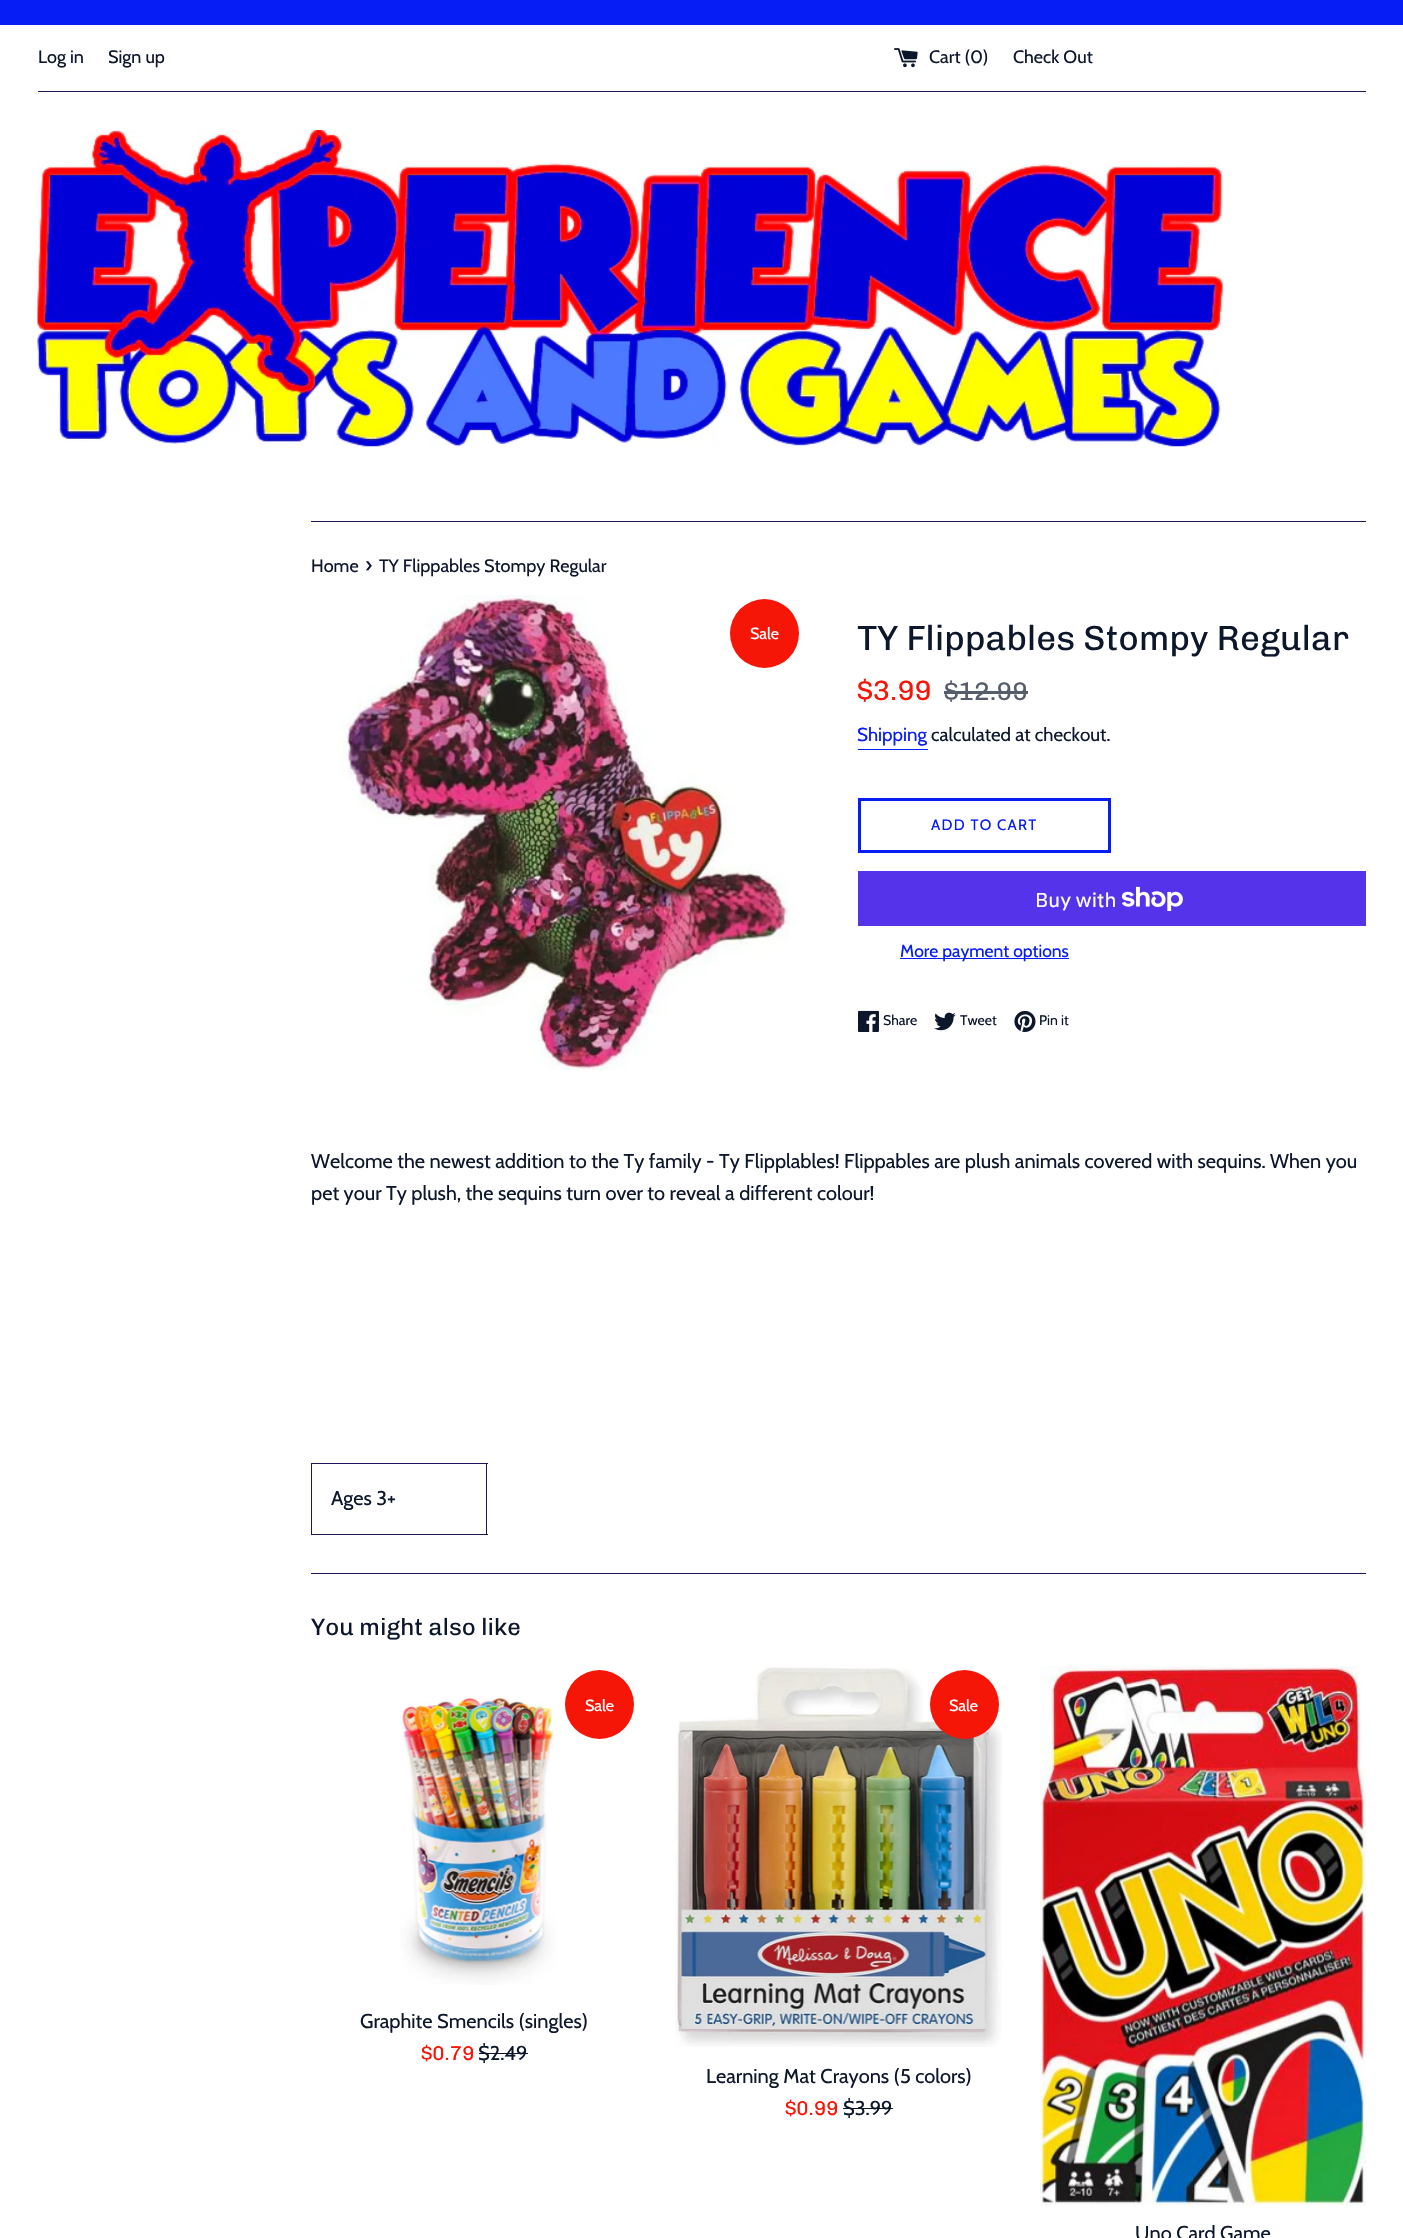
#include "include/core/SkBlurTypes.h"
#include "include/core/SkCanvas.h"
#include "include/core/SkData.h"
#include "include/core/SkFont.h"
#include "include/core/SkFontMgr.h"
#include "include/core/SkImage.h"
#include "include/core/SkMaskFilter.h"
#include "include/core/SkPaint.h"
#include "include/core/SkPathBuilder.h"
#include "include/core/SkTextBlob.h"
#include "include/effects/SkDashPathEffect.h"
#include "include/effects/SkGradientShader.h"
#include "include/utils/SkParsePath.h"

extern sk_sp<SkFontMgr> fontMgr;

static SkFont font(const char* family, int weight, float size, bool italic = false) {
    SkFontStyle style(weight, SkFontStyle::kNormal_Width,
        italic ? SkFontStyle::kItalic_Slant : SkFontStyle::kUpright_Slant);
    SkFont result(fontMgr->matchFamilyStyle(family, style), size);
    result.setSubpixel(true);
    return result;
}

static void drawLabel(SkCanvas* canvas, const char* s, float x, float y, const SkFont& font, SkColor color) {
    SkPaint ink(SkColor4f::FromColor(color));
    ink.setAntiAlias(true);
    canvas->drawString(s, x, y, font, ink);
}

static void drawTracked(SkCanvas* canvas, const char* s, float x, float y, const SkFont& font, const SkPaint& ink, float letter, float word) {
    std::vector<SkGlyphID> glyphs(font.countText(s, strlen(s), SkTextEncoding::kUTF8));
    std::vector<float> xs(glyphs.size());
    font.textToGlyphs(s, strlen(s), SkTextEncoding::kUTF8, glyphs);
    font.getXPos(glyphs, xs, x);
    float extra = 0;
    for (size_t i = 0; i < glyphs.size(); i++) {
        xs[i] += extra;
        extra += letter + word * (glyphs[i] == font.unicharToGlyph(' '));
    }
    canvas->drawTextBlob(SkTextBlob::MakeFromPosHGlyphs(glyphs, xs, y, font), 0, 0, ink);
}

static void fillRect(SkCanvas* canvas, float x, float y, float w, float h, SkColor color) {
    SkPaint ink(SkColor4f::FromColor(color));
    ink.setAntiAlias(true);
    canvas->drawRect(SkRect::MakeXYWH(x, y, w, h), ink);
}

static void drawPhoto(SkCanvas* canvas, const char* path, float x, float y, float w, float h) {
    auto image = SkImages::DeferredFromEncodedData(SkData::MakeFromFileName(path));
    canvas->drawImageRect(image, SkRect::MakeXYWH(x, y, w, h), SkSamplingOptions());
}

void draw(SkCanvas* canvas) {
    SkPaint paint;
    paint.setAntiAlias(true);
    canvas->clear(0xFFFFFFFF);
    fillRect(canvas, 0, 0, 1403, 25, 0xFF071DF5);
    SkFont font1 = font("Cabin", 400, 18);
    drawLabel(canvas, "Log in", 38, 63, font1, 0xFF0D172C);
    drawLabel(canvas, "Sign up", 108, 63, font1, 0xFF0D172C);
    drawPhoto(canvas, "assets/img1.png", 894, 48, 24, 20);
    drawLabel(canvas, "Cart (0)", 929, 63, font1, 0xFF0D172C);
    drawLabel(canvas, "Check Out", 1013, 63, font1, 0xFF0D172C);
    fillRect(canvas, 38, 91, 1328, 1, 0xFF1E1458);
    drawPhoto(canvas, "assets/img2.png", 37, 130, 1186, 317);
    fillRect(canvas, 311, 521, 1055, 1, 0xFF1E1458);
    drawLabel(canvas, "Home", 311, 572, font1, 0xFF0D172C);
    SkFont font2 = font("Cabin", 400, 22);
    drawLabel(canvas, "›", 365, 572, font2, 0xFF0D172C);
    drawLabel(canvas, "TY Flippables Stompy Regular", 379, 572, font1, 0xFF0D172C);
    drawPhoto(canvas, "assets/img3.png", 338, 595, 452, 475);
    paint.setColor(0xFFF61607);
    canvas->drawCircle(764.5f, 633.5f, 34.5f, paint);
    SkFont font3 = font("Cabin", 400, 16);
    drawLabel(canvas, "Sale", 750, 639, font3, 0xFFFFFFFF);
    SkFont font4 = font("Chivo", 400, 35);
    drawLabel(canvas, "TY Flippables Stompy Regular", 857, 650, font4, 0xFF0D172C);
    SkFont font5 = font("Chivo", 400, 28);
    drawLabel(canvas, "$3.99", 857, 700, font5, 0xFFF61607);
    SkFont font6 = font("Chivo", 400, 25.5f);
    drawLabel(canvas, "$12.99", 944, 700, font6, 0xFF565D6B);
    fillRect(canvas, 944, 691, 84, 3, 0xFF565D6B);
    SkFont font7 = font("Cabin", 400, 18.75f);
    drawLabel(canvas, "Shipping", 857, 741, font7, 0xFF071DF5);
    fillRect(canvas, 858, 749, 70, 1, 0xFF071DF5);
    drawLabel(canvas, "calculated at checkout.", 931, 741, font7, 0xFF0D172C);
    paint.setStroke(true);
    paint.setStrokeWidth(3);
    paint.setColor(0xFF071DF5);
    canvas->drawRect(SkRect::MakeXYWH(859.5f, 799.5f, 250, 52), paint);
    SkFont font8 = font("Cabin", 400, 15);
    paint.setStroke(false);
    drawTracked(canvas, "ADD TO CART", 931, 830, font8, paint, 1.25f, 0);
    fillRect(canvas, 858, 871, 508, 55, 0xFF5433EB);
    SkFont font9 = font("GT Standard", 400, 20);
    drawLabel(canvas, "Buy with", 1035, 907, font9, 0xFFFFFFFF);
    drawPhoto(canvas, "assets/img4.png", 1121, 886, 62, 25);
    fillRect(canvas, 900, 958, 169, 1, 0xFF071DF5);
    SkFont font10 = font("Cabin", 400, 17.5f);
    drawLabel(canvas, "More payment options", 900, 957, font10, 0xFF071DF5);
    drawPhoto(canvas, "assets/img5.png", 858, 1010, 21, 22);
    SkFont font11 = font("Cabin", 400, 14);
    drawLabel(canvas, "Share", 883, 1025, font11, 0xFF0D172C);
    drawPhoto(canvas, "assets/img6.png", 934, 1012, 22, 19);
    drawLabel(canvas, "Tweet", 960, 1025, font11, 0xFF0D172C);
    drawPhoto(canvas, "assets/img7.png", 1014, 1010, 22, 22);
    drawLabel(canvas, "Pin it", 1039, 1025, font11, 0xFF0D172C);
    SkFont font12 = font("Cabin", 400, 20);
    drawLabel(canvas, "Welcome the newest addition to the Ty family - Ty Flipplables! Flippables are plush animals covered with sequins. When you", 311, 1168, font12, 0xFF0D172C);
    drawLabel(canvas, "pet your Ty plush, the sequins turn over to reveal a different colour!", 311, 1200, font12, 0xFF0D172C);
    fillRect(canvas, 311, 1463, 177, 1, 0xFF1E1458);
    fillRect(canvas, 486, 1463, 1, 72, 0xFF1E1458);
    fillRect(canvas, 311, 1534, 177, 1, 0xFF1E1458);
    fillRect(canvas, 311, 1463, 1, 72, 0xFF1E1458);
    drawLabel(canvas, "Ages 3+", 331, 1505, font12, 0xFF0D172C);
    fillRect(canvas, 311, 1573, 1055, 1, 0xFF1E1458);
    SkFont font13 = font("Chivo", 400, 23.75f);
    drawLabel(canvas, "You might also like", 311, 1635, font13, 0xFF0D172C);
    drawPhoto(canvas, "assets/img8.png", 400, 1695, 158, 290);
    paint.setColor(0xFFF61607);
    canvas->drawCircle(599.5f, 1704.5f, 34.5f, paint);
    drawLabel(canvas, "Sale", 585, 1711, font3, 0xFFFFFFFF);
    SkFont font14 = font("Chivo", 400, 20);
    drawLabel(canvas, "$0.79", 421, 2060, font14, 0xFFF61607);
    drawLabel(canvas, "$2.49", 478, 2060, font12, 0xFF0D172C);
    fillRect(canvas, 479, 2053, 49, 1, 0xFF0D172C);
    drawLabel(canvas, "Graphite Smencils (singles)", 360, 2028, font12, 0xFF0D172C);
    drawPhoto(canvas, "assets/img9.png", 675, 1666, 327, 381);
    canvas->drawCircle(964.5f, 1704.5f, 34.5f, paint);
    drawLabel(canvas, "Sale", 949, 1711, font3, 0xFFFFFFFF);
    drawLabel(canvas, "$0.99", 785, 2115, font14, 0xFFF61607);
    drawLabel(canvas, "$3.99", 843, 2115, font12, 0xFF0D172C);
    fillRect(canvas, 843, 2108, 50, 1, 0xFF0D172C);
    drawLabel(canvas, "Learning Mat Crayons (5 colors)", 706, 2083, font12, 0xFF0D172C);
    drawPhoto(canvas, "assets/img10.png", 1040, 1666, 327, 540);
    drawLabel(canvas, "Uno Card Game", 1135, 2240, font12, 0xFF0D172C);
}
